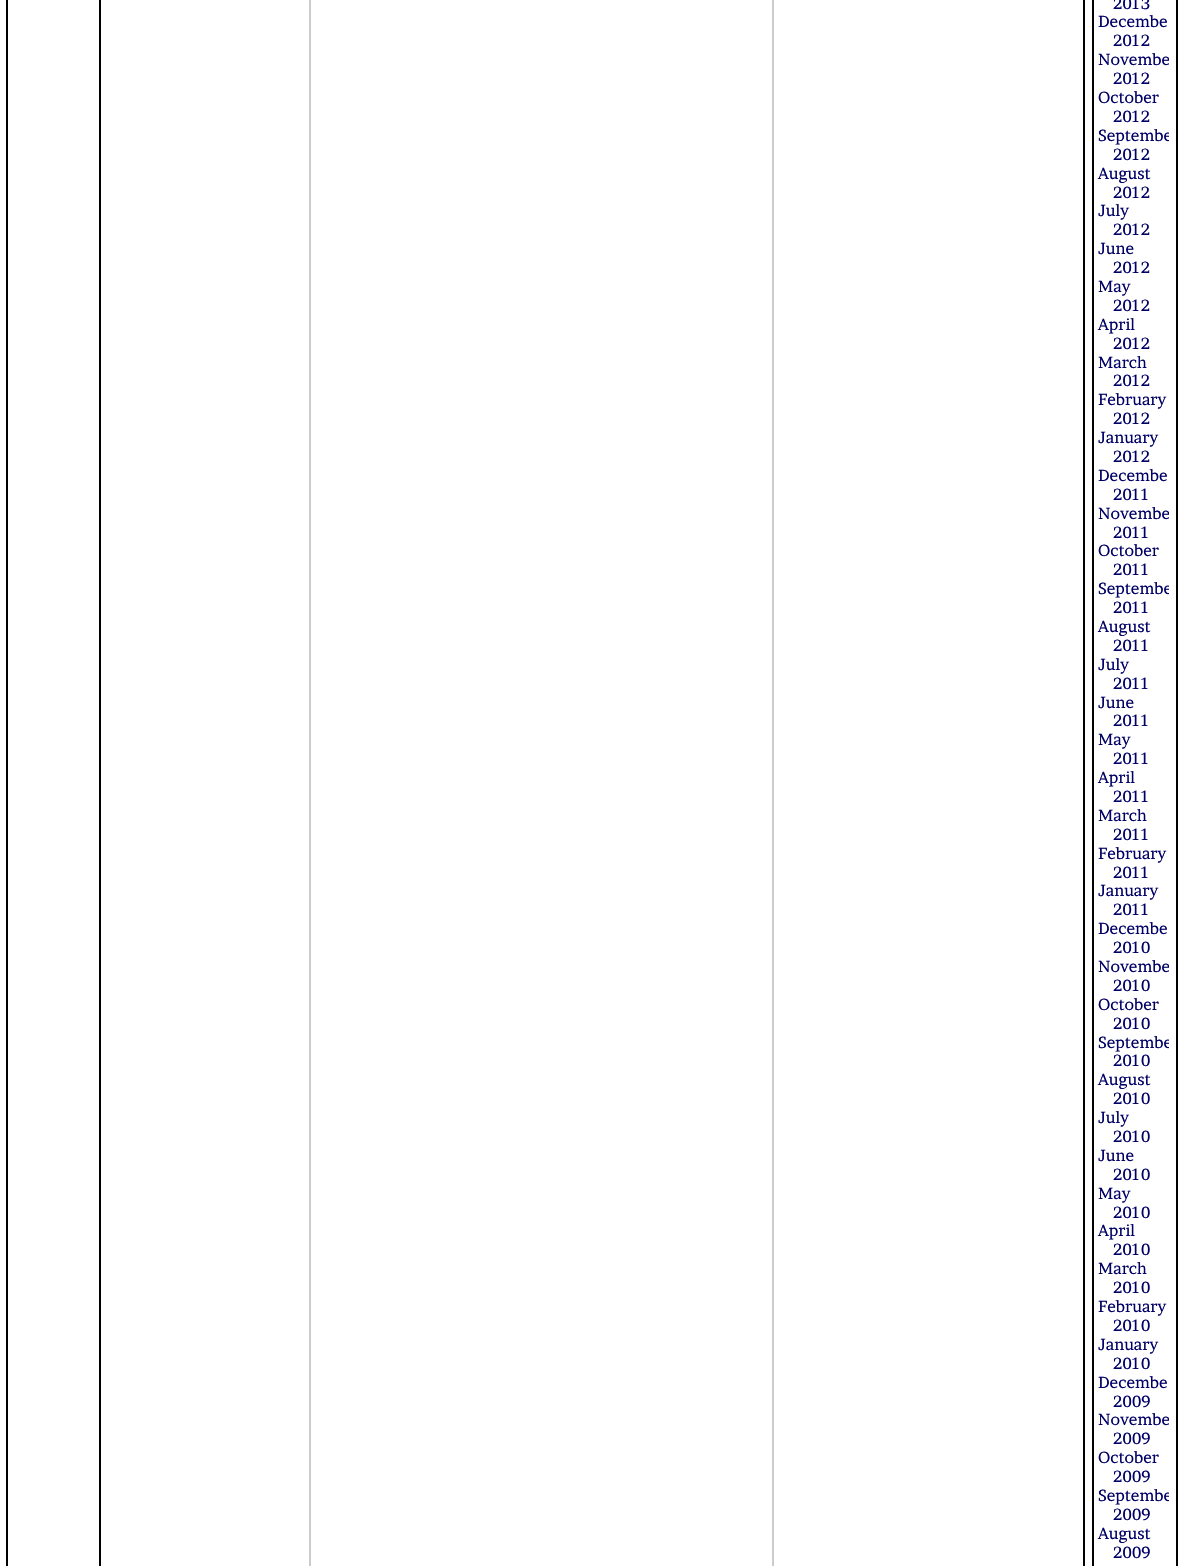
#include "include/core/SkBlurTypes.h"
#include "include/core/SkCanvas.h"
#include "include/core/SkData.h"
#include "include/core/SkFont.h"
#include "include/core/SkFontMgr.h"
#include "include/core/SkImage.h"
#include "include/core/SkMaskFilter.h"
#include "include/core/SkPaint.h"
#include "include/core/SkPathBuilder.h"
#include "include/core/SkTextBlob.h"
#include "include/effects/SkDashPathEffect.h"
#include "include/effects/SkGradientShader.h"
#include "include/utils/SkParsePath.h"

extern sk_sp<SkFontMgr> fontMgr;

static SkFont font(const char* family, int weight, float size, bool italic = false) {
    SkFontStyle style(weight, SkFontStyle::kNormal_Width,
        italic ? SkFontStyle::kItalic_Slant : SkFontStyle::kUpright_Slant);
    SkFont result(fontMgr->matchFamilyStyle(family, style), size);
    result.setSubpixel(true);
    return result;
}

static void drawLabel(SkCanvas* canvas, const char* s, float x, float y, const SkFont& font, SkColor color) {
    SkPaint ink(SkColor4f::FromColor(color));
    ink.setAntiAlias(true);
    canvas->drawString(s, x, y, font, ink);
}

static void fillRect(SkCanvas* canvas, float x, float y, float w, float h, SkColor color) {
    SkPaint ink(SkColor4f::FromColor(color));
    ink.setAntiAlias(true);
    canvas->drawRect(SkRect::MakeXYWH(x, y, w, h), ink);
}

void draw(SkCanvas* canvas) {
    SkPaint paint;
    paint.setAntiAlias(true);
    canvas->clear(0xFFFFFFFF);
    paint.setStroke(true);
    paint.setStrokeWidth(2);
    paint.setColor(0xFFCCCCCC);
    canvas->drawRect(SkRect::MakeXYWH(310, -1, 463, 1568), paint);
    paint.setColor(0xFF000000);
    canvas->drawRect(SkRect::MakeXYWH(7, -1, 93, 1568), paint);
    canvas->drawRect(SkRect::MakeXYWH(1084, -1, 93, 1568), paint);
    fillRect(canvas, 1092, 0, 2, 1566, 0xFF000000);
    SkFont font1 = font("Brawler", 400, 16);
    drawLabel(canvas, "2013", 1113, 9, font1, 0xFF000066);
    drawLabel(canvas, "Decembe", 1098, 27, font1, 0xFF000066);
    drawLabel(canvas, "2012", 1113, 46, font1, 0xFF000066);
    canvas->save();
    canvas->clipRect(SkRect::MakeXYWH(1094, 0, 75, 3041));
    drawLabel(canvas, "Novembe", 1098, 65, font1, 0xFF000066);
    canvas->restore();
    drawLabel(canvas, "2012", 1113, 84, font1, 0xFF000066);
    drawLabel(canvas, "October", 1098, 103, font1, 0xFF000066);
    drawLabel(canvas, "2012", 1113, 122, font1, 0xFF000066);
    canvas->save();
    canvas->clipRect(SkRect::MakeXYWH(1094, 0, 75, 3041));
    drawLabel(canvas, "Septembe", 1098, 141, font1, 0xFF000066);
    canvas->restore();
    drawLabel(canvas, "2012", 1113, 160, font1, 0xFF000066);
    drawLabel(canvas, "August", 1098, 179, font1, 0xFF000066);
    drawLabel(canvas, "2012", 1113, 198, font1, 0xFF000066);
    drawLabel(canvas, "July", 1098, 216, font1, 0xFF000066);
    drawLabel(canvas, "2012", 1113, 235, font1, 0xFF000066);
    drawLabel(canvas, "June", 1098, 254, font1, 0xFF000066);
    drawLabel(canvas, "2012", 1113, 273, font1, 0xFF000066);
    drawLabel(canvas, "May", 1098, 292, font1, 0xFF000066);
    drawLabel(canvas, "2012", 1113, 311, font1, 0xFF000066);
    drawLabel(canvas, "April", 1098, 330, font1, 0xFF000066);
    drawLabel(canvas, "2012", 1113, 349, font1, 0xFF000066);
    drawLabel(canvas, "March", 1098, 368, font1, 0xFF000066);
    drawLabel(canvas, "2012", 1113, 386, font1, 0xFF000066);
    drawLabel(canvas, "February", 1098, 405, font1, 0xFF000066);
    drawLabel(canvas, "2012", 1113, 424, font1, 0xFF000066);
    drawLabel(canvas, "January", 1098, 443, font1, 0xFF000066);
    drawLabel(canvas, "2012", 1113, 462, font1, 0xFF000066);
    drawLabel(canvas, "Decembe", 1098, 481, font1, 0xFF000066);
    drawLabel(canvas, "2011", 1113, 500, font1, 0xFF000066);
    canvas->save();
    canvas->clipRect(SkRect::MakeXYWH(1094, 0, 75, 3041));
    drawLabel(canvas, "Novembe", 1098, 519, font1, 0xFF000066);
    canvas->restore();
    drawLabel(canvas, "2011", 1113, 538, font1, 0xFF000066);
    drawLabel(canvas, "October", 1098, 556, font1, 0xFF000066);
    drawLabel(canvas, "2011", 1113, 575, font1, 0xFF000066);
    canvas->save();
    canvas->clipRect(SkRect::MakeXYWH(1094, 0, 75, 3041));
    drawLabel(canvas, "Septembe", 1098, 594, font1, 0xFF000066);
    canvas->restore();
    drawLabel(canvas, "2011", 1113, 613, font1, 0xFF000066);
    drawLabel(canvas, "August", 1098, 632, font1, 0xFF000066);
    drawLabel(canvas, "2011", 1113, 651, font1, 0xFF000066);
    drawLabel(canvas, "July", 1098, 670, font1, 0xFF000066);
    drawLabel(canvas, "2011", 1113, 689, font1, 0xFF000066);
    drawLabel(canvas, "June", 1098, 708, font1, 0xFF000066);
    drawLabel(canvas, "2011", 1113, 726, font1, 0xFF000066);
    drawLabel(canvas, "May", 1098, 745, font1, 0xFF000066);
    drawLabel(canvas, "2011", 1113, 764, font1, 0xFF000066);
    drawLabel(canvas, "April", 1098, 783, font1, 0xFF000066);
    drawLabel(canvas, "2011", 1113, 802, font1, 0xFF000066);
    drawLabel(canvas, "March", 1098, 821, font1, 0xFF000066);
    drawLabel(canvas, "2011", 1113, 840, font1, 0xFF000066);
    drawLabel(canvas, "February", 1098, 859, font1, 0xFF000066);
    drawLabel(canvas, "2011", 1113, 878, font1, 0xFF000066);
    drawLabel(canvas, "January", 1098, 896, font1, 0xFF000066);
    drawLabel(canvas, "2011", 1113, 915, font1, 0xFF000066);
    drawLabel(canvas, "Decembe", 1098, 934, font1, 0xFF000066);
    drawLabel(canvas, "2010", 1113, 953, font1, 0xFF000066);
    canvas->save();
    canvas->clipRect(SkRect::MakeXYWH(1094, 0, 75, 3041));
    drawLabel(canvas, "Novembe", 1098, 972, font1, 0xFF000066);
    canvas->restore();
    drawLabel(canvas, "2010", 1113, 991, font1, 0xFF000066);
    drawLabel(canvas, "October", 1098, 1010, font1, 0xFF000066);
    drawLabel(canvas, "2010", 1113, 1029, font1, 0xFF000066);
    canvas->save();
    canvas->clipRect(SkRect::MakeXYWH(1094, 0, 75, 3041));
    drawLabel(canvas, "Septembe", 1098, 1048, font1, 0xFF000066);
    canvas->restore();
    drawLabel(canvas, "2010", 1113, 1066, font1, 0xFF000066);
    drawLabel(canvas, "August", 1098, 1085, font1, 0xFF000066);
    drawLabel(canvas, "2010", 1113, 1104, font1, 0xFF000066);
    drawLabel(canvas, "July", 1098, 1123, font1, 0xFF000066);
    drawLabel(canvas, "2010", 1113, 1142, font1, 0xFF000066);
    drawLabel(canvas, "June", 1098, 1161, font1, 0xFF000066);
    drawLabel(canvas, "2010", 1113, 1180, font1, 0xFF000066);
    drawLabel(canvas, "May", 1098, 1199, font1, 0xFF000066);
    drawLabel(canvas, "2010", 1113, 1218, font1, 0xFF000066);
    drawLabel(canvas, "April", 1098, 1236, font1, 0xFF000066);
    drawLabel(canvas, "2010", 1113, 1255, font1, 0xFF000066);
    drawLabel(canvas, "March", 1098, 1274, font1, 0xFF000066);
    drawLabel(canvas, "2010", 1113, 1293, font1, 0xFF000066);
    drawLabel(canvas, "February", 1098, 1312, font1, 0xFF000066);
    drawLabel(canvas, "2010", 1113, 1331, font1, 0xFF000066);
    drawLabel(canvas, "January", 1098, 1350, font1, 0xFF000066);
    drawLabel(canvas, "2010", 1113, 1369, font1, 0xFF000066);
    drawLabel(canvas, "Decembe", 1098, 1388, font1, 0xFF000066);
    drawLabel(canvas, "2009", 1113, 1407, font1, 0xFF000066);
    canvas->save();
    canvas->clipRect(SkRect::MakeXYWH(1094, 0, 75, 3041));
    drawLabel(canvas, "Novembe", 1098, 1425, font1, 0xFF000066);
    canvas->restore();
    drawLabel(canvas, "2009", 1113, 1444, font1, 0xFF000066);
    drawLabel(canvas, "October", 1098, 1463, font1, 0xFF000066);
    drawLabel(canvas, "2009", 1113, 1482, font1, 0xFF000066);
    canvas->save();
    canvas->clipRect(SkRect::MakeXYWH(1094, 0, 75, 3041));
    drawLabel(canvas, "Septembe", 1098, 1501, font1, 0xFF000066);
    canvas->restore();
    drawLabel(canvas, "2009", 1113, 1520, font1, 0xFF000066);
    drawLabel(canvas, "August", 1098, 1539, font1, 0xFF000066);
    drawLabel(canvas, "2009", 1113, 1558, font1, 0xFF000066);
}
